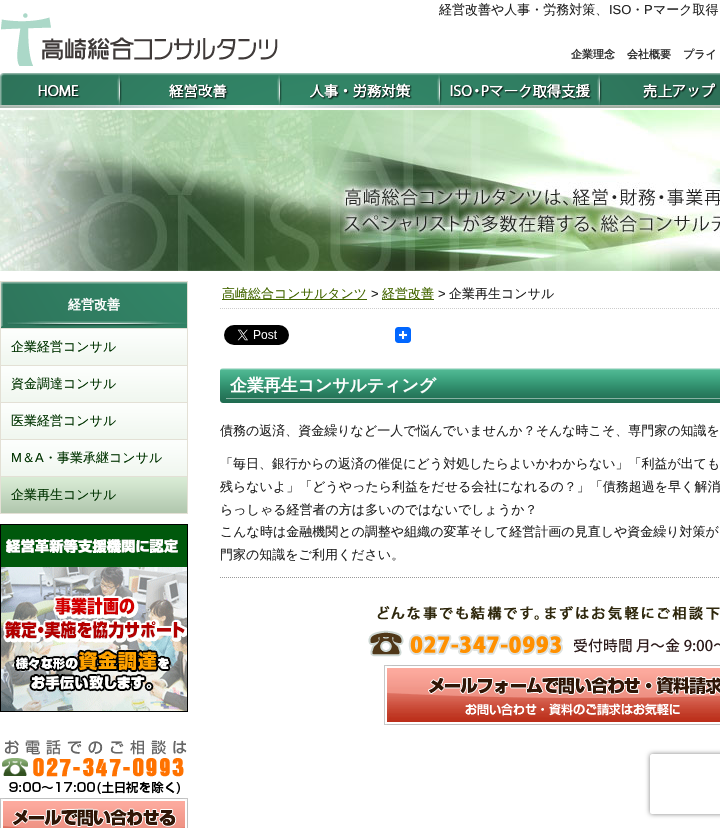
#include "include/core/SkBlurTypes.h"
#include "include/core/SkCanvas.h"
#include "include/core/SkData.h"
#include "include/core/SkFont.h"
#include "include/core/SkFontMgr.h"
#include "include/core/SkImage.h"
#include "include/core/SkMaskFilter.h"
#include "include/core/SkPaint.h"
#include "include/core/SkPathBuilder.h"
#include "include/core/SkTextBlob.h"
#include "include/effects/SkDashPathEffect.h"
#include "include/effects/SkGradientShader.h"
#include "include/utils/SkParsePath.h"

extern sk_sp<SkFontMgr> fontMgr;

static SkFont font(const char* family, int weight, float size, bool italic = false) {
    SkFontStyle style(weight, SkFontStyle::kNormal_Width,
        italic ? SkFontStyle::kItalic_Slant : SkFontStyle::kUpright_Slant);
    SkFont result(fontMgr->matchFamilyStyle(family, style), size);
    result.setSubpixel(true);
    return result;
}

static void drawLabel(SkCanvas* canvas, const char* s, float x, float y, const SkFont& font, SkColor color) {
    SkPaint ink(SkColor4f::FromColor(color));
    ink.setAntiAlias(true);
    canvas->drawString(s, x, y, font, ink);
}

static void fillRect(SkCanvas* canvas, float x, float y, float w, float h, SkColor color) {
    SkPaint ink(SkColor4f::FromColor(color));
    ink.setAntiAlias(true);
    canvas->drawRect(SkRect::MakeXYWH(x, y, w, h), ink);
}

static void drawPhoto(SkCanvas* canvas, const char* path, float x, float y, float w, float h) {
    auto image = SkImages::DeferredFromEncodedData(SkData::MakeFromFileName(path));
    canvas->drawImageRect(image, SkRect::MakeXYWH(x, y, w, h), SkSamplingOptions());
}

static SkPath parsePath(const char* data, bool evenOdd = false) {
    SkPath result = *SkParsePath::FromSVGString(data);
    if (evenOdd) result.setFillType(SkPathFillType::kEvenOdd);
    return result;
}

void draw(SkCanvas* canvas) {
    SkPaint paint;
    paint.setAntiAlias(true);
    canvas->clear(0xFFFFFFFF);
    SkFont font1 = font("WenQuanYi Zen Hei", 500, 13);
    drawLabel(canvas, "経営改善や人事・労務対策、", 439, 14, font1, 0xFF222222);
    SkFont font2 = font("Liberation Sans", 400, 13);
    drawLabel(canvas, "ISO", 609, 14, font2, 0xFF222222);
    drawLabel(canvas, "・", 631, 14, font1, 0xFF222222);
    drawLabel(canvas, "P", 644, 14, font2, 0xFF222222);
    drawLabel(canvas, "マーク取得", 653, 14, font1, 0xFF222222);
    drawPhoto(canvas, "assets/img1.png", 1, 13, 277, 53);
    SkFont font3 = font("WenQuanYi Zen Hei", 700, 11);
    drawLabel(canvas, "企業理念", 571, 58, font3, 0xFF333333);
    drawLabel(canvas, "会社概要", 627, 58, font3, 0xFF333333);
    drawLabel(canvas, "プライ", 683, 58, font3, 0xFF333333);
    drawPhoto(canvas, "assets/img2.png", 0, 73, 120, 35);
    drawPhoto(canvas, "assets/img3.png", 120, 73, 160, 35);
    drawPhoto(canvas, "assets/img4.png", 280, 73, 160, 35);
    drawPhoto(canvas, "assets/img5.png", 440, 73, 160, 35);
    drawPhoto(canvas, "assets/img6.png", 600, 73, 120, 35);
    drawPhoto(canvas, "assets/img7.png", 0, 110, 720, 161);
    fillRect(canvas, 0, 281, 188, 1, 0xFFE3E0D5);
    drawPhoto(canvas, "assets/img8.png", 1, 282, 186, 46);
    fillRect(canvas, 187, 282, 1, 232, 0xFFE3E0D5);
    fillRect(canvas, 0, 328, 188, 1, 0xFFE3E0D5);
    fillRect(canvas, 0, 282, 1, 47, 0xFFE3E0D5);
    SkFont font4 = font("WenQuanYi Zen Hei", 700, 13);
    drawLabel(canvas, "経営改善", 68, 309, font4, 0xFFFFFFFF);
    drawPhoto(canvas, "assets/img9.png", 1, 329, 186, 36);
    fillRect(canvas, 0, 365, 188, 1, 0xFFE3E0D5);
    fillRect(canvas, 0, 329, 1, 37, 0xFFE3E0D5);
    drawLabel(canvas, "企業経営コンサル", 11, 351, font1, 0xFF003300);
    drawPhoto(canvas, "assets/img9.png", 1, 366, 186, 36);
    fillRect(canvas, 0, 402, 188, 1, 0xFFE3E0D5);
    fillRect(canvas, 0, 366, 1, 37, 0xFFE3E0D5);
    drawLabel(canvas, "資金調達コンサル", 11, 388, font1, 0xFF003300);
    drawPhoto(canvas, "assets/img9.png", 1, 403, 186, 36);
    fillRect(canvas, 0, 439, 188, 1, 0xFFE3E0D5);
    fillRect(canvas, 0, 403, 1, 37, 0xFFE3E0D5);
    drawLabel(canvas, "医業経営コンサル", 11, 425, font1, 0xFF003300);
    drawPhoto(canvas, "assets/img9.png", 1, 440, 186, 36);
    fillRect(canvas, 0, 476, 188, 1, 0xFFE3E0D5);
    fillRect(canvas, 0, 440, 1, 37, 0xFFE3E0D5);
    drawLabel(canvas, "M", 11, 462, font2, 0xFF003300);
    drawLabel(canvas, "＆", 22, 462, font1, 0xFF003300);
    drawLabel(canvas, "A", 35, 462, font2, 0xFF003300);
    drawLabel(canvas, "・事業承継コンサル", 44, 462, font1, 0xFF003300);
    drawPhoto(canvas, "assets/img10.png", 1, 477, 186, 36);
    fillRect(canvas, 0, 513, 188, 1, 0xFFE3E0D5);
    fillRect(canvas, 0, 477, 1, 37, 0xFFE3E0D5);
    drawLabel(canvas, "企業再生コンサル", 11, 499, font1, 0xFF003300);
    drawPhoto(canvas, "assets/img11.png", 0, 524, 188, 188);
    drawPhoto(canvas, "assets/img12.png", 2, 740, 185, 54);
    drawPhoto(canvas, "assets/img13.png", 0, 798, 188, 30);
    paint.setStroke(true);
    paint.setStrokeWidth(1);
    paint.setColor(0xFFCCCCCC);
    paint.setPathEffect(SkDashPathEffect::Make({{1, 1}}, 0));
    canvas->drawPath(parsePath("M220 308.5H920"), paint);
    paint.setPathEffect(nullptr);
    fillRect(canvas, 222, 299, 145, 1, 0xFF436600);
    drawLabel(canvas, "高崎総合コンサルタンツ", 222, 298, font1, 0xFF436600);
    drawLabel(canvas, ">", 371, 298, font2, 0xFF222222);
    fillRect(canvas, 382, 299, 52, 1, 0xFF436600);
    drawLabel(canvas, "経営改善", 382, 298, font1, 0xFF436600);
    drawLabel(canvas, ">", 438, 298, font2, 0xFF222222);
    drawLabel(canvas, "企業再生コンサル", 449, 298, font1, 0xFF222222);
    drawPhoto(canvas, "assets/img14.png", 224, 325, 65, 20);
    drawPhoto(canvas, "assets/img15.png", 395, 327, 16, 16);
    drawPhoto(canvas, "assets/img16.png", 220, 368, 500, 35);
    SkFont font5 = font("WenQuanYi Zen Hei", 700, 16.9f);
    drawLabel(canvas, "企業再生コンサルティング", 230, 391, font5, 0xFFFFFFFF);
    drawLabel(canvas, "債務の返済、資金繰りなど一人で悩んでいませんか？そんな時こそ、専門家の知識を", 220, 435, font1, 0xFF222222);
    drawLabel(canvas, "「毎日、銀行からの返済の催促にどう対処したらよいかわからない」「利益が出ても", 220, 468, font1, 0xFF222222);
    drawLabel(canvas, "残らないよ」「どうやったら利益をだせる会社になれるの？」「債務超過を早く解消", 220, 491, font1, 0xFF222222);
    drawLabel(canvas, "らっしゃる経営者の方は多いのではないでしょうか？", 220, 514, font1, 0xFF222222);
    drawLabel(canvas, "こんな時は金融機関との調整や組織の変革そして経営計画の見直しや資金繰り対策が", 220, 536, font1, 0xFF222222);
    drawLabel(canvas, "門家の知識をご利用ください。", 220, 559, font1, 0xFF222222);
    paint.setColor(0xFF999999);
    paint.setPathEffect(SkDashPathEffect::Make({{1, 1}}, 0));
    canvas->drawPath(parsePath("M220 577.5H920"), paint);
    paint.setPathEffect(nullptr);
    drawPhoto(canvas, "assets/img17.png", 368, 606, 352, 51);
    drawPhoto(canvas, "assets/img18.png", 384, 665, 336, 60);
    canvas->save();
    canvas->clipPath(parsePath("M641 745H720V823H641ZM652 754H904C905 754 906 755 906 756V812C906 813 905 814 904 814H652C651 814 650 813 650 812V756C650 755 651 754 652 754Z", true), true);
    paint.setStroke(false);
    paint.setColor(0xFF808080);
    paint.setMaskFilter(SkMaskFilter::MakeBlur(kNormal_SkBlurStyle, 2.5f));
    canvas->drawRoundRect(SkRect::MakeXYWH(650, 754, 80, 60), 2, 2, paint);
    paint.setMaskFilter(nullptr);
    canvas->restore();
}
